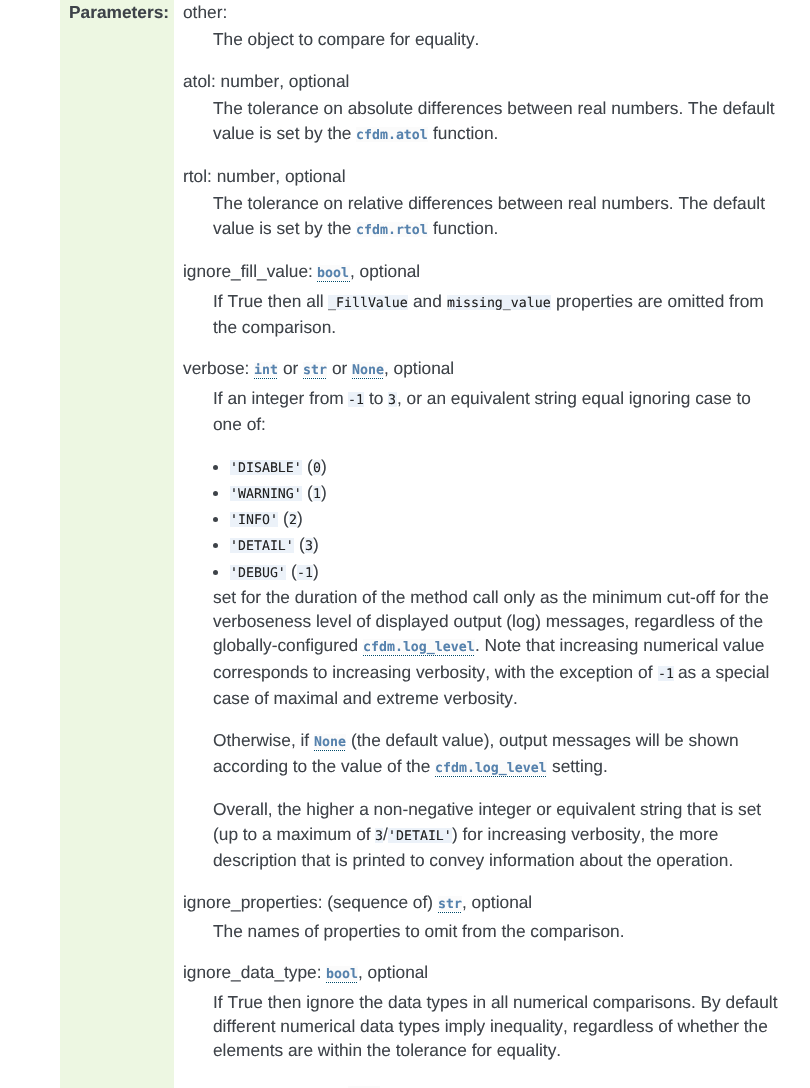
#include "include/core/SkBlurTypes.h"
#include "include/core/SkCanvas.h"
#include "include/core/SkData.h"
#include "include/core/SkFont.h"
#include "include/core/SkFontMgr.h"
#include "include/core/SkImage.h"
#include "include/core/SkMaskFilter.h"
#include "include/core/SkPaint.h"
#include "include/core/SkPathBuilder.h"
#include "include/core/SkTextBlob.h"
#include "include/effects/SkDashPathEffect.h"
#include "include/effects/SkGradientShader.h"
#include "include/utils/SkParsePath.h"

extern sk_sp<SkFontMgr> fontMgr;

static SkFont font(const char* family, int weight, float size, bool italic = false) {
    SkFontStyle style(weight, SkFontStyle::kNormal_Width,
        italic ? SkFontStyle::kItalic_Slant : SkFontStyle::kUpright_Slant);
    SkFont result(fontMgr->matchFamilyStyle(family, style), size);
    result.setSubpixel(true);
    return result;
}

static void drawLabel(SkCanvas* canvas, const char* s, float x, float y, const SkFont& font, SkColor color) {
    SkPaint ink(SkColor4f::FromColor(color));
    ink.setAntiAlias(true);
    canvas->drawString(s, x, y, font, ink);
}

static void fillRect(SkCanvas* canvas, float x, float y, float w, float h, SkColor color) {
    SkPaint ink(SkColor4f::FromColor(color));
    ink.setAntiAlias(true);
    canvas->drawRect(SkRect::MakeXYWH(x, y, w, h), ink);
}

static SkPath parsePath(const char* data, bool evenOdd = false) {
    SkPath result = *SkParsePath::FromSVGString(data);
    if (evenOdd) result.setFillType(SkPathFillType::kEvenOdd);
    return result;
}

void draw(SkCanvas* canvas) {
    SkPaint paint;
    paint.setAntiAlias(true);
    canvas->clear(0xFFFFFFFF);
    fillRect(canvas, 60, 0, 114, 1088, 0xFFEDF7E2);
    SkFont font1 = font("Liberation Sans", 700, 17.3f);
    drawLabel(canvas, "Parameters:", 69, 18, font1, 0xFF3E4349);
    SkFont font2 = font("Liberation Sans", 400, 17.3f);
    drawLabel(canvas, "other:", 183, 18, font2, 0xFF3E4349);
    drawLabel(canvas, "The object to compare for equality.", 213, 45, font2, 0xFF3E4349);
    drawLabel(canvas, "atol: number, optional", 183, 87, font2, 0xFF3E4349);
    drawLabel(canvas, "The tolerance on absolute differences between real numbers. The default", 213, 114, font2, 0xFF3E4349);
    drawLabel(canvas, "value is set by the", 213, 139, font2, 0xFF3E4349);
    fillRect(canvas, 356, 127, 72, 15, 0xFFFBFBFB);
    SkFont font3 = font("DejaVu Sans Mono", 700, 13.25f);
    drawLabel(canvas, "cfdm.atol", 356, 139, font3, 0xFF5682AD);
    drawLabel(canvas, "function.", 433, 139, font2, 0xFF3E4349);
    drawLabel(canvas, "rtol: number, optional", 183, 182, font2, 0xFF3E4349);
    drawLabel(canvas, "The tolerance on relative differences between real numbers. The default", 213, 209, font2, 0xFF3E4349);
    drawLabel(canvas, "value is set by the", 213, 234, font2, 0xFF3E4349);
    fillRect(canvas, 356, 222, 72, 15, 0xFFFBFBFB);
    drawLabel(canvas, "cfdm.rtol", 356, 234, font3, 0xFF5682AD);
    drawLabel(canvas, "function.", 433, 234, font2, 0xFF3E4349);
    drawLabel(canvas, "ignore_fill_value:", 183, 277, font2, 0xFF3E4349);
    fillRect(canvas, 317, 265, 33, 15, 0xFFFBFBFB);
    drawLabel(canvas, "bool", 317, 277, font3, 0xFF5682AD);
    paint.setStroke(true);
    paint.setStrokeWidth(1);
    paint.setColor(0xFF004B6B);
    paint.setPathEffect(SkDashPathEffect::Make({{1, 1}}, 0));
    canvas->drawPath(parsePath("M317 281.5H350"), paint);
    paint.setPathEffect(nullptr);
    drawLabel(canvas, ", optional", 350, 277, font2, 0xFF3E4349);
    drawLabel(canvas, "If True then all", 213, 307, font2, 0xFF3E4349);
    fillRect(canvas, 328, 295, 80, 15, 0xFFECF2F9);
    SkFont font4 = font("DejaVu Sans Mono", 400, 13.25f);
    drawLabel(canvas, "_FillValue", 328, 307, font4, 0xFF222222);
    drawLabel(canvas, "and", 413, 307, font2, 0xFF3E4349);
    fillRect(canvas, 447, 295, 104, 15, 0xFFECF2F9);
    drawLabel(canvas, "missing_value", 447, 307, font4, 0xFF222222);
    drawLabel(canvas, "properties are omitted from", 556, 307, font2, 0xFF3E4349);
    drawLabel(canvas, "the comparison.", 213, 333, font2, 0xFF3E4349);
    drawLabel(canvas, "verbose:", 183, 374, font2, 0xFF3E4349);
    fillRect(canvas, 254, 362, 24, 15, 0xFFFBFBFB);
    drawLabel(canvas, "int", 254, 374, font3, 0xFF5682AD);
    paint.setPathEffect(SkDashPathEffect::Make({{1, 1}}, 0));
    canvas->drawPath(parsePath("M254 378.5H278"), paint);
    paint.setPathEffect(nullptr);
    drawLabel(canvas, "or", 283, 374, font2, 0xFF3E4349);
    fillRect(canvas, 303, 362, 24, 15, 0xFFFBFBFB);
    drawLabel(canvas, "str", 303, 374, font3, 0xFF5682AD);
    paint.setPathEffect(SkDashPathEffect::Make({{1, 1}}, 0));
    canvas->drawPath(parsePath("M303 378.5H327"), paint);
    paint.setPathEffect(nullptr);
    drawLabel(canvas, "or", 332, 374, font2, 0xFF3E4349);
    fillRect(canvas, 352, 362, 32, 15, 0xFFFBFBFB);
    drawLabel(canvas, "None", 352, 374, font3, 0xFF5682AD);
    paint.setPathEffect(SkDashPathEffect::Make({{1, 1}}, 0));
    canvas->drawPath(parsePath("M352 378.5H384"), paint);
    paint.setPathEffect(nullptr);
    drawLabel(canvas, ", optional", 384, 374, font2, 0xFF3E4349);
    drawLabel(canvas, "If an integer from", 213, 404, font2, 0xFF3E4349);
    fillRect(canvas, 348, 392, 16, 15, 0xFFECF2F9);
    drawLabel(canvas, "-1", 348, 404, font4, 0xFF222222);
    drawLabel(canvas, "to", 369, 404, font2, 0xFF3E4349);
    fillRect(canvas, 388, 392, 9, 15, 0xFFECF2F9);
    drawLabel(canvas, "3", 388, 404, font4, 0xFF222222);
    drawLabel(canvas, ", or an equivalent string equal ignoring case to", 397, 404, font2, 0xFF3E4349);
    drawLabel(canvas, "one of:", 213, 430, font2, 0xFF3E4349);
    paint.setStroke(false);
    paint.setColor(0xFF3E4349);
    canvas->drawCircle(215.5f, 467.5f, 2.5f, paint);
    fillRect(canvas, 230, 460, 72, 15, 0xFFECF2F9);
    drawLabel(canvas, "'DISABLE'", 230, 472, font4, 0xFF222222);
    drawLabel(canvas, "(", 307, 472, font2, 0xFF3E4349);
    fillRect(canvas, 313, 460, 8, 15, 0xFFECF2F9);
    drawLabel(canvas, "0", 313, 472, font4, 0xFF222222);
    drawLabel(canvas, ")", 321, 472, font2, 0xFF3E4349);
    canvas->drawCircle(215.5f, 493.5f, 2.5f, paint);
    fillRect(canvas, 230, 486, 72, 15, 0xFFECF2F9);
    drawLabel(canvas, "'WARNING'", 230, 498, font4, 0xFF222222);
    drawLabel(canvas, "(", 307, 498, font2, 0xFF3E4349);
    fillRect(canvas, 313, 486, 8, 15, 0xFFECF2F9);
    drawLabel(canvas, "1", 313, 498, font4, 0xFF222222);
    drawLabel(canvas, ")", 321, 498, font2, 0xFF3E4349);
    canvas->drawCircle(215.5f, 519.5f, 2.5f, paint);
    fillRect(canvas, 230, 512, 48, 15, 0xFFECF2F9);
    drawLabel(canvas, "'INFO'", 230, 524, font4, 0xFF222222);
    drawLabel(canvas, "(", 283, 524, font2, 0xFF3E4349);
    fillRect(canvas, 289, 512, 8, 15, 0xFFECF2F9);
    drawLabel(canvas, "2", 289, 524, font4, 0xFF222222);
    drawLabel(canvas, ")", 297, 524, font2, 0xFF3E4349);
    canvas->drawCircle(215.5f, 545.5f, 2.5f, paint);
    fillRect(canvas, 230, 538, 64, 15, 0xFFECF2F9);
    drawLabel(canvas, "'DETAIL'", 230, 550, font4, 0xFF222222);
    drawLabel(canvas, "(", 299, 550, font2, 0xFF3E4349);
    fillRect(canvas, 305, 538, 8, 15, 0xFFECF2F9);
    drawLabel(canvas, "3", 305, 550, font4, 0xFF222222);
    drawLabel(canvas, ")", 313, 550, font2, 0xFF3E4349);
    canvas->drawCircle(215.5f, 572.5f, 2.5f, paint);
    fillRect(canvas, 230, 565, 56, 15, 0xFFECF2F9);
    drawLabel(canvas, "'DEBUG'", 230, 577, font4, 0xFF222222);
    drawLabel(canvas, "(", 291, 577, font2, 0xFF3E4349);
    fillRect(canvas, 297, 565, 16, 15, 0xFFECF2F9);
    drawLabel(canvas, "-1", 297, 577, font4, 0xFF222222);
    drawLabel(canvas, ")", 313, 577, font2, 0xFF3E4349);
    drawLabel(canvas, "set for the duration of the method call only as the minimum cut-off for the", 213, 603, font2, 0xFF3E4349);
    drawLabel(canvas, "verboseness level of displayed output (log) messages, regardless of the", 213, 627, font2, 0xFF3E4349);
    drawLabel(canvas, "globally-configured", 213, 651, font2, 0xFF3E4349);
    fillRect(canvas, 363, 639, 112, 15, 0xFFFBFBFB);
    drawLabel(canvas, "cfdm.log_level", 363, 651, font3, 0xFF5682AD);
    paint.setStroke(true);
    paint.setColor(0xFF004B6B);
    paint.setPathEffect(SkDashPathEffect::Make({{1, 1}}, 0));
    canvas->drawPath(parsePath("M363 655.5H475"), paint);
    paint.setPathEffect(nullptr);
    drawLabel(canvas, ". Note that increasing numerical value", 475, 651, font2, 0xFF3E4349);
    drawLabel(canvas, "corresponds to increasing verbosity, with the exception of", 213, 678, font2, 0xFF3E4349);
    fillRect(canvas, 658, 666, 16, 15, 0xFFECF2F9);
    drawLabel(canvas, "-1", 658, 678, font4, 0xFF222222);
    drawLabel(canvas, "as a special", 678, 678, font2, 0xFF3E4349);
    drawLabel(canvas, "case of maximal and extreme verbosity.", 213, 704, font2, 0xFF3E4349);
    drawLabel(canvas, "Otherwise, if", 213, 746, font2, 0xFF3E4349);
    fillRect(canvas, 314, 734, 32, 15, 0xFFFBFBFB);
    drawLabel(canvas, "None", 314, 746, font3, 0xFF5682AD);
    paint.setPathEffect(SkDashPathEffect::Make({{1, 1}}, 0));
    canvas->drawPath(parsePath("M314 750.5H346"), paint);
    paint.setPathEffect(nullptr);
    drawLabel(canvas, "(the default value), output messages will be shown", 351, 746, font2, 0xFF3E4349);
    drawLabel(canvas, "according to the value of the", 213, 772, font2, 0xFF3E4349);
    fillRect(canvas, 435, 760, 112, 15, 0xFFFBFBFB);
    drawLabel(canvas, "cfdm.log_level", 435, 772, font3, 0xFF5682AD);
    paint.setPathEffect(SkDashPathEffect::Make({{1, 1}}, 0));
    canvas->drawPath(parsePath("M435 776.5H547"), paint);
    paint.setPathEffect(nullptr);
    drawLabel(canvas, "setting.", 552, 772, font2, 0xFF3E4349);
    drawLabel(canvas, "Overall, the higher a non-negative integer or equivalent string that is set", 213, 815, font2, 0xFF3E4349);
    drawLabel(canvas, "(up to a maximum of", 213, 840, font2, 0xFF3E4349);
    fillRect(canvas, 375, 828, 8, 15, 0xFFECF2F9);
    drawLabel(canvas, "3", 375, 840, font4, 0xFF222222);
    drawLabel(canvas, "/", 383, 840, font2, 0xFF3E4349);
    fillRect(canvas, 388, 828, 64, 15, 0xFFECF2F9);
    drawLabel(canvas, "'DETAIL'", 388, 840, font4, 0xFF222222);
    drawLabel(canvas, ") for increasing verbosity, the more", 452, 840, font2, 0xFF3E4349);
    drawLabel(canvas, "description that is printed to convey information about the operation.", 213, 866, font2, 0xFF3E4349);
    drawLabel(canvas, "ignore_properties: (sequence of)", 183, 908, font2, 0xFF3E4349);
    fillRect(canvas, 438, 896, 24, 15, 0xFFFBFBFB);
    drawLabel(canvas, "str", 438, 908, font3, 0xFF5682AD);
    paint.setPathEffect(SkDashPathEffect::Make({{1, 1}}, 0));
    canvas->drawPath(parsePath("M438 912.5H462"), paint);
    paint.setPathEffect(nullptr);
    drawLabel(canvas, ", optional", 462, 908, font2, 0xFF3E4349);
    drawLabel(canvas, "The names of properties to omit from the comparison.", 213, 937, font2, 0xFF3E4349);
    drawLabel(canvas, "ignore_data_type:", 183, 978, font2, 0xFF3E4349);
    fillRect(canvas, 326, 966, 32, 15, 0xFFFBFBFB);
    drawLabel(canvas, "bool", 326, 978, font3, 0xFF5682AD);
    paint.setPathEffect(SkDashPathEffect::Make({{1, 1}}, 0));
    canvas->drawPath(parsePath("M326 982.5H358"), paint);
    paint.setPathEffect(nullptr);
    drawLabel(canvas, ", optional", 358, 978, font2, 0xFF3E4349);
    drawLabel(canvas, "If True then ignore the data types in all numerical comparisons. By default", 213, 1008, font2, 0xFF3E4349);
    drawLabel(canvas, "different numerical data types imply inequality, regardless of whether the", 213, 1032, font2, 0xFF3E4349);
    drawLabel(canvas, "elements are within the tolerance for equality.", 213, 1056, font2, 0xFF3E4349);
    fillRect(canvas, 348, 1086, 32, 2, 0xFFFBFBFB);
}
